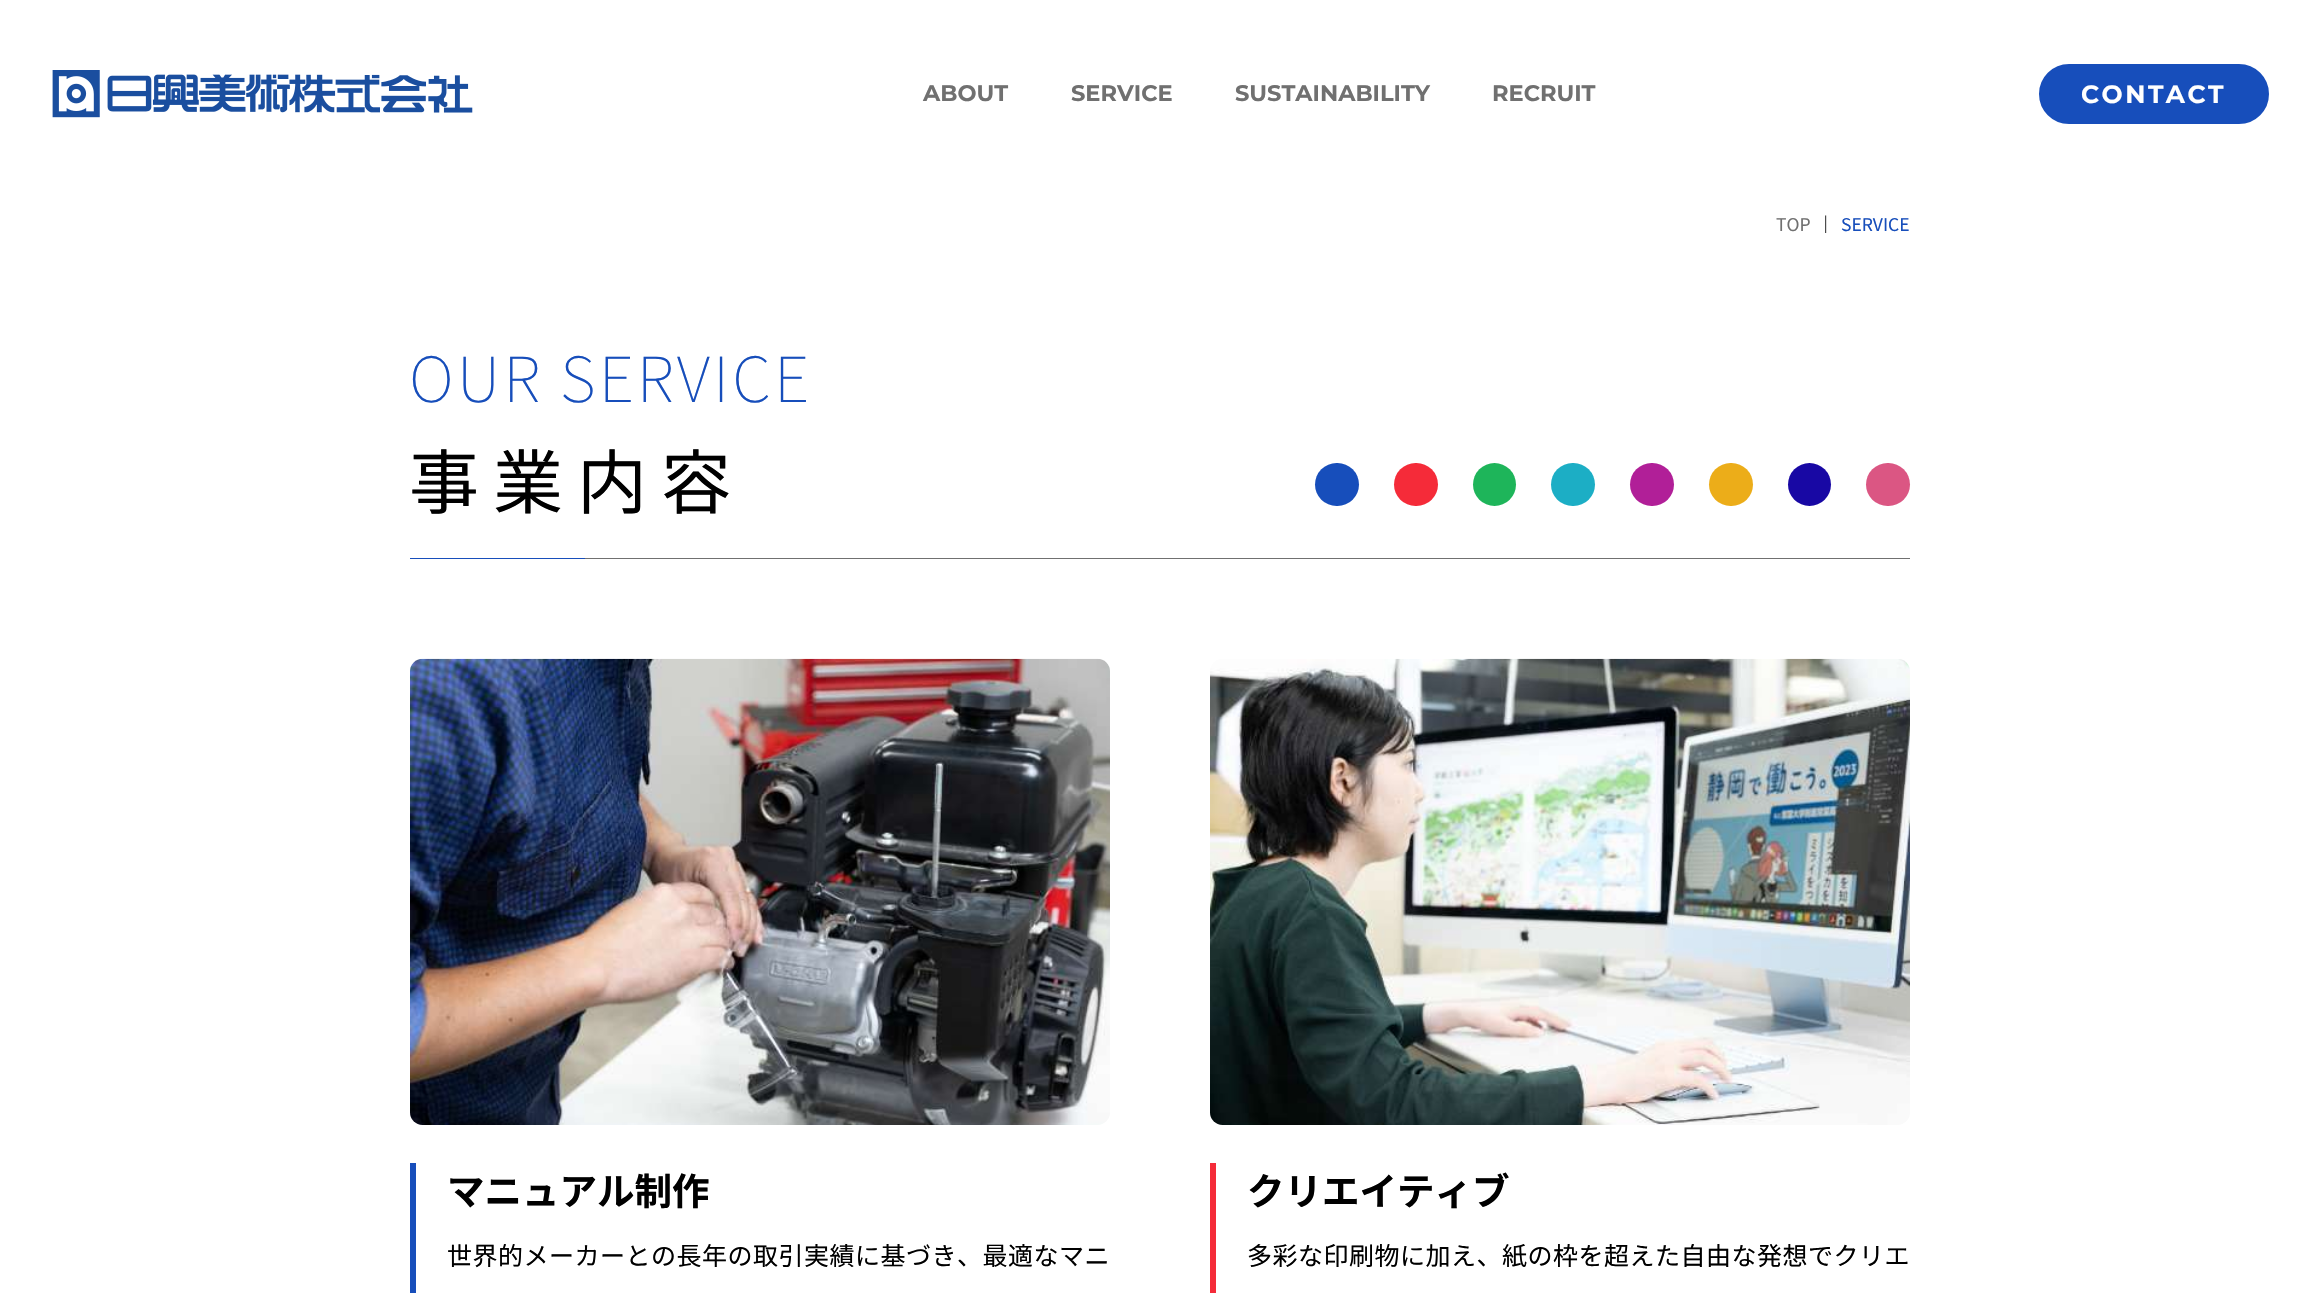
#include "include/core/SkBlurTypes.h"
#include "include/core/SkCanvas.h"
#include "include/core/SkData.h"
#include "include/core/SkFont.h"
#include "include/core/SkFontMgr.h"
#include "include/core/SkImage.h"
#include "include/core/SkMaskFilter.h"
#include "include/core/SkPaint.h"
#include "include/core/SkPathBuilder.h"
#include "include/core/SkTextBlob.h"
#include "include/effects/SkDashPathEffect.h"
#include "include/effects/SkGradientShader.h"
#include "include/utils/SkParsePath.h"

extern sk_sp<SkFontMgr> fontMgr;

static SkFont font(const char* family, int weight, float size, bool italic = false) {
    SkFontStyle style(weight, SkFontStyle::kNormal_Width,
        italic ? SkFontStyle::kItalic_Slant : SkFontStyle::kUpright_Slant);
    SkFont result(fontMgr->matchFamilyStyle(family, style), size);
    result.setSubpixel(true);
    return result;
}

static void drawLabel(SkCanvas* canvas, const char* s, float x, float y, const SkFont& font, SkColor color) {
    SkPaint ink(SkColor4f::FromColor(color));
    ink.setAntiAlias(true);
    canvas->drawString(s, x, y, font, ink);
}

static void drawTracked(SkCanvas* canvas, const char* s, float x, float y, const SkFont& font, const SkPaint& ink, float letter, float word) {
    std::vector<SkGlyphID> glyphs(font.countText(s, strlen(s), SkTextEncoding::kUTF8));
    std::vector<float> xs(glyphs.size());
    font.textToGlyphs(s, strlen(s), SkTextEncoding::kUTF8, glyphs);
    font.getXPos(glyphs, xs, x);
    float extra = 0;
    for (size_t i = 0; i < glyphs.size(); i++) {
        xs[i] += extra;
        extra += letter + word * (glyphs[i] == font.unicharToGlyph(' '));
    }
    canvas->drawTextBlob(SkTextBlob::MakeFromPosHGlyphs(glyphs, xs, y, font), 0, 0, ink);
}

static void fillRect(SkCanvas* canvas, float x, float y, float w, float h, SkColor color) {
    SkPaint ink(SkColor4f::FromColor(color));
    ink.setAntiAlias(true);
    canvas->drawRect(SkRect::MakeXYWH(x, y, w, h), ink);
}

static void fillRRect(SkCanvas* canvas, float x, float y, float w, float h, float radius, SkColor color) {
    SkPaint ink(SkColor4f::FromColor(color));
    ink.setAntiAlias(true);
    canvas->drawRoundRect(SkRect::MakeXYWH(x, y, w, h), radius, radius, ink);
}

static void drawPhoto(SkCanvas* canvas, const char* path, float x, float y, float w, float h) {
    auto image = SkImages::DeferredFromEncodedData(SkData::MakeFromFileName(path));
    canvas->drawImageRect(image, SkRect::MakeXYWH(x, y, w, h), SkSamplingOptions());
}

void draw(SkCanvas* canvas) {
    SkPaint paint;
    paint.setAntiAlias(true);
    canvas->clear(0xFFFFFFFF);
    drawPhoto(canvas, "assets/img1.png", 52, 70, 421, 48);
    SkFont font1 = font("Montserrat", 700, 22.5f);
    drawLabel(canvas, "ABOUT", 923, 101, font1, 0xFF707070);
    drawLabel(canvas, "SERVICE", 1071, 101, font1, 0xFF707070);
    drawLabel(canvas, "SUSTAINABILITY", 1235, 101, font1, 0xFF707070);
    drawLabel(canvas, "RECRUIT", 1492, 101, font1, 0xFF707070);
    paint.setColor(0xFF174EBB);
    canvas->drawRoundRect(SkRect::MakeXYWH(2040.5f, 65.5f, 227, 57), 28.5f, 28.5f, paint);
    paint.setStroke(true);
    paint.setStrokeWidth(3);
    canvas->drawRoundRect(SkRect::MakeXYWH(2040.5f, 65.5f, 227, 57), 28.5f, 28.5f, paint);
    SkFont font2 = font("Montserrat", 700, 25);
    paint.setStroke(false);
    paint.setColor(0xFFFFFFFF);
    drawTracked(canvas, "CONTACT", 2081, 103, font2, paint, 2.5f, 0);
    SkFont font3 = font("Noto Sans JP", 400, 17.5f);
    drawLabel(canvas, "TOP", 1776, 231, font3, 0xFF707070);
    drawLabel(canvas, "｜", 1817, 231, font3, 0xFF000000);
    drawLabel(canvas, "SERVICE", 1841, 231, font3, 0xFF174EBB);
    SkFont font4 = font("Noto Sans JP", 100, 62.5f);
    paint.setColor(0xFF174EBB);
    drawTracked(canvas, "OUR SERVICE", 409, 402, font4, paint, 3.1f, 0);
    fillRect(canvas, 585, 558, 1325, 1, 0xFF707070);
    SkFont font5 = font("Noto Sans JP", 400, 70);
    paint.setColor(0xFF000000);
    drawTracked(canvas, "事業内容", 409, 508, font5, paint, 14, 0);
    fillRect(canvas, 410, 558, 175, 1, 0xFF174EBB);
    fillRRect(canvas, 1315, 463, 44, 43, 21.5f, 0xFF174EBB);
    fillRRect(canvas, 1394, 463, 44, 43, 21.5f, 0xFFF52B39);
    paint.setColor(0xFF1EB55A);
    canvas->drawCircle(1494.5f, 484.5f, 21.5f, paint);
    fillRRect(canvas, 1551, 463, 44, 43, 21.5f, 0xFF1CAEC5);
    fillRRect(canvas, 1630, 463, 44, 43, 21.5f, 0xFFB11F98);
    fillRRect(canvas, 1709, 463, 44, 43, 21.5f, 0xFFECAD19);
    paint.setColor(0xFF1808A4);
    canvas->drawCircle(1809.5f, 484.5f, 21.5f, paint);
    fillRRect(canvas, 1866, 463, 44, 43, 21.5f, 0xFFDB5683);
    drawPhoto(canvas, "assets/img2.png", 410, 658, 700, 467);
    fillRect(canvas, 410, 1163, 6, 130, 0xFF174EBB);
    SkFont font6 = font("Noto Sans JP", 700, 37.5f);
    drawLabel(canvas, "マニュアル制作", 447, 1205, font6, 0xFF000000);
    SkFont font7 = font("Noto Sans JP", 400, 25);
    paint.setColor(0xFF000000);
    drawTracked(canvas, "世界的メーカーとの長年の取引実績に基づき、最適なマニ", 447, 1265, font7, paint, 0.5f, 0);
    drawPhoto(canvas, "assets/img3.png", 1210, 658, 700, 467);
    fillRect(canvas, 1210, 1163, 6, 130, 0xFFF52B39);
    drawLabel(canvas, "クリエイティブ", 1247, 1205, font6, 0xFF000000);
    drawTracked(canvas, "多彩な印刷物に加え、紙の枠を超えた自由な発想でクリエ", 1247, 1265, font7, paint, 0.5f, 0);
}
